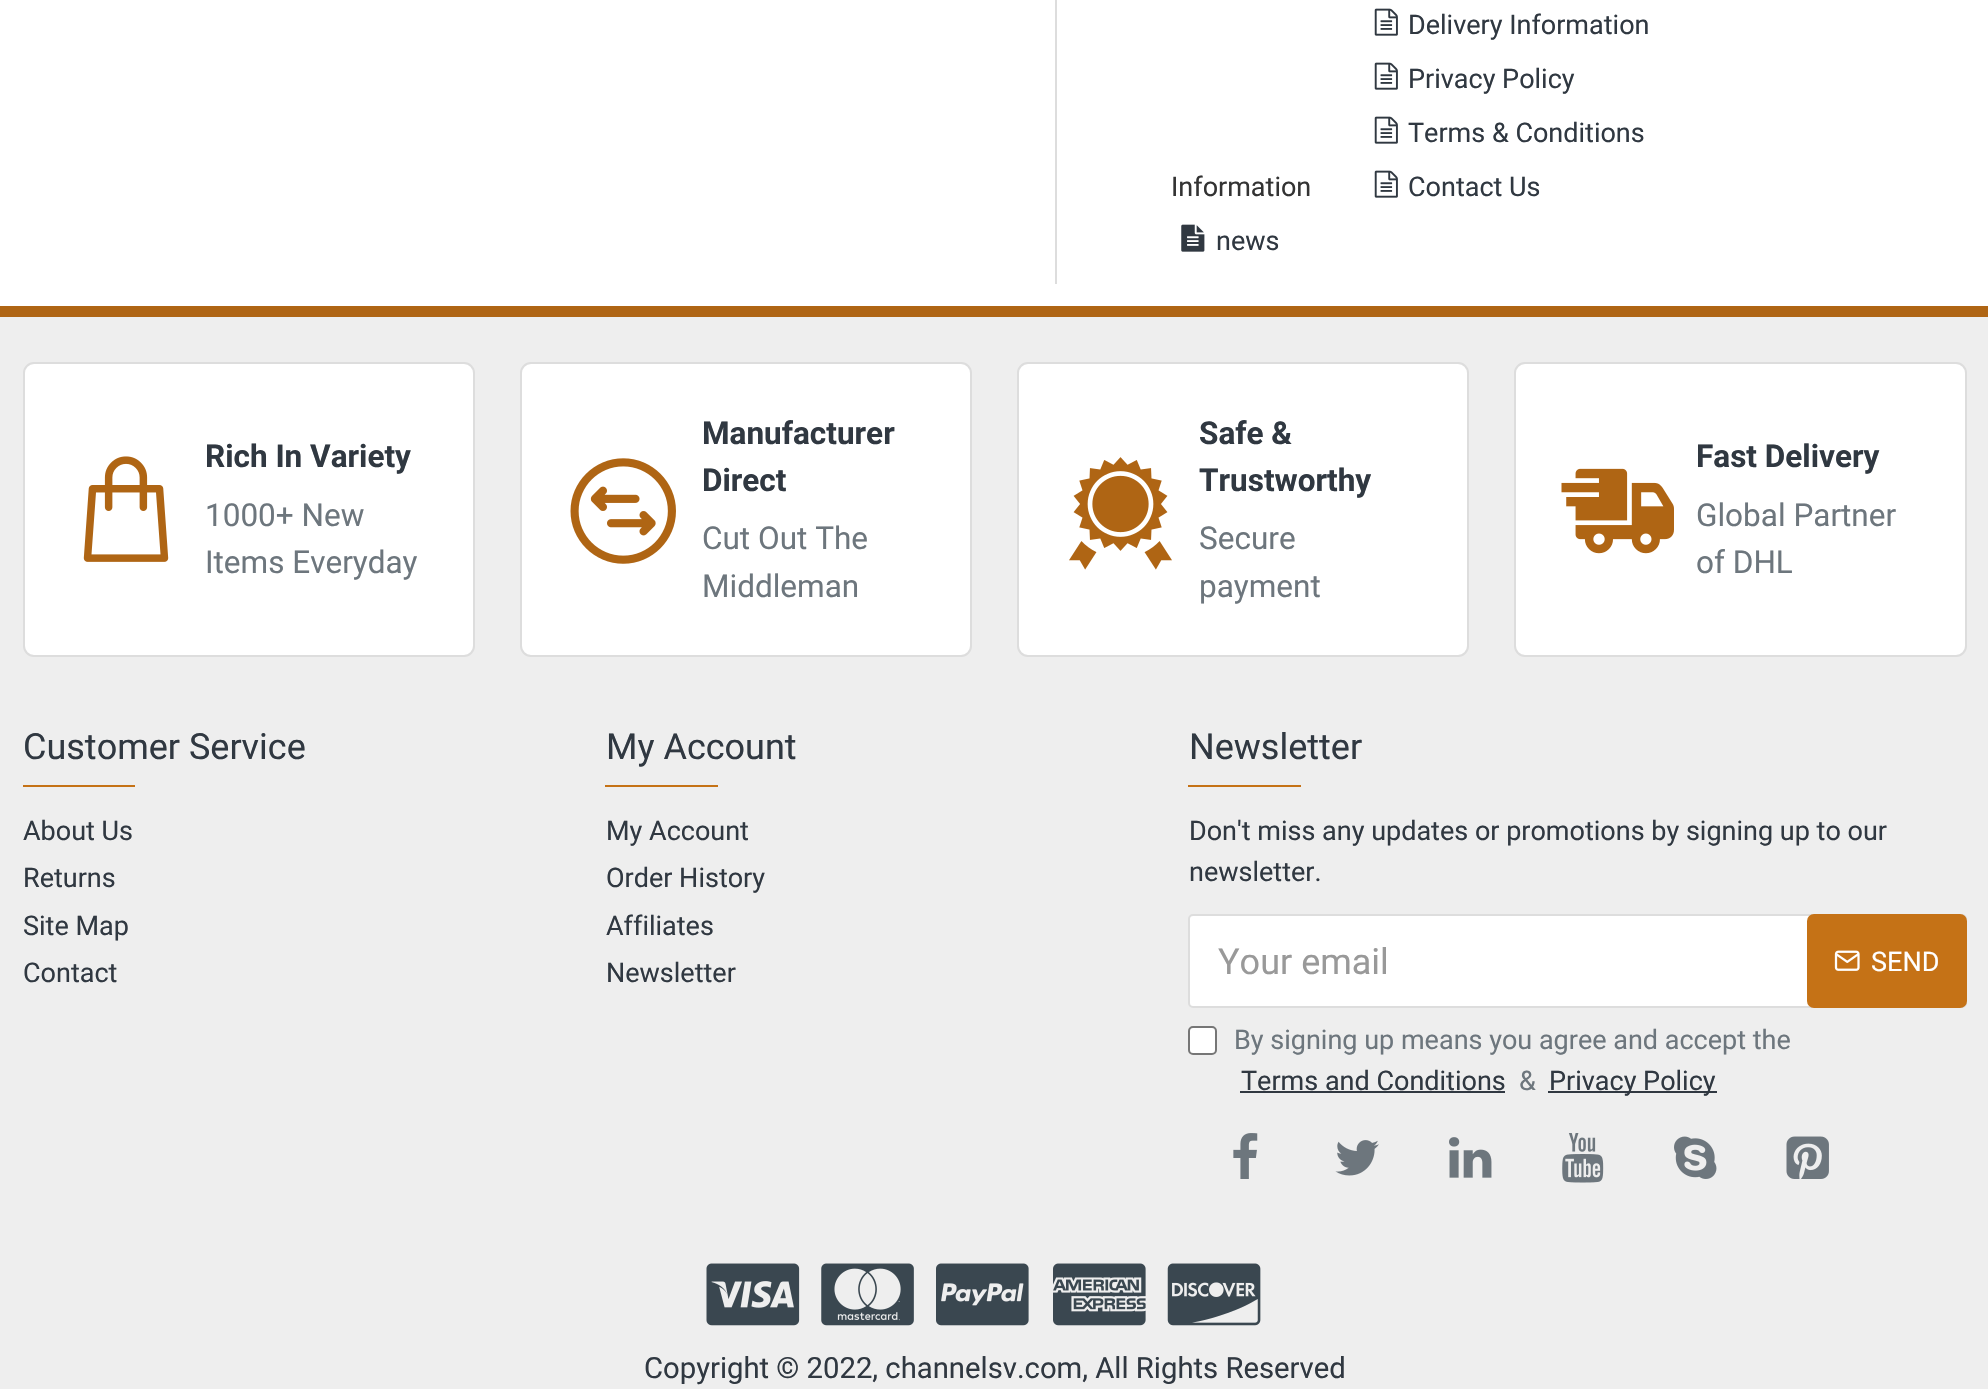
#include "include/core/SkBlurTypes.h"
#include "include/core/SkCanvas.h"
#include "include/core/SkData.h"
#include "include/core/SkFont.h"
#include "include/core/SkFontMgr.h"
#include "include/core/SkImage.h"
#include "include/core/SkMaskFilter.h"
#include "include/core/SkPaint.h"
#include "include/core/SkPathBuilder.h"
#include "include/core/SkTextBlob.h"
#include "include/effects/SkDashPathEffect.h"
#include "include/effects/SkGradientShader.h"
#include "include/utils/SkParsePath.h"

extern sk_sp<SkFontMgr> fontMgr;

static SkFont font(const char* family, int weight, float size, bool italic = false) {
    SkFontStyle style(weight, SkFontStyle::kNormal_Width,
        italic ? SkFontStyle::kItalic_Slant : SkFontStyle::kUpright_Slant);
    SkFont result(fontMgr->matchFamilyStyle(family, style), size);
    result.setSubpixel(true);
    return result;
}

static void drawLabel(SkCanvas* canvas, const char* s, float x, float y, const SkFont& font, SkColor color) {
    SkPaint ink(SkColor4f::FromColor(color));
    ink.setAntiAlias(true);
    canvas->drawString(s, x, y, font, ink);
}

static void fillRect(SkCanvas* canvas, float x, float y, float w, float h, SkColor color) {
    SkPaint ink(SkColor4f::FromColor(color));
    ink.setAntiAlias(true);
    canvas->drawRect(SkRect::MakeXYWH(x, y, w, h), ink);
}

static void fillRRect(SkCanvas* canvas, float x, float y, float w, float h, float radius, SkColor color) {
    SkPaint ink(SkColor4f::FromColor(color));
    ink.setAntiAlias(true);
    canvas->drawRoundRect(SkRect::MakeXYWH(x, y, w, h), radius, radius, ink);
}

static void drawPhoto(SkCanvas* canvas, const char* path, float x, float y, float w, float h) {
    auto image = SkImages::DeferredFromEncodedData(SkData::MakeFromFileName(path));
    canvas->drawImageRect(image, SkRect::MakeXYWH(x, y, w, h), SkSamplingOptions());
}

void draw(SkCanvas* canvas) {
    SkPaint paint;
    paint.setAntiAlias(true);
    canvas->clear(0xFFFFFFFF);
    fillRect(canvas, 1055, 0, 2, 284, 0xFFDDDDDD);
    SkFont font1 = font("Roboto", 400, 27);
    drawLabel(canvas, "Information", 1171, 196, font1, 0xFF333333);
    drawPhoto(canvas, "assets/img1.png", 1374, 8, 24, 28);
    drawLabel(canvas, "Delivery Information", 1408, 34, font1, 0xFF303841);
    drawPhoto(canvas, "assets/img1.png", 1374, 62, 24, 28);
    drawLabel(canvas, "Privacy Policy", 1408, 88, font1, 0xFF303841);
    drawPhoto(canvas, "assets/img1.png", 1374, 116, 24, 28);
    drawLabel(canvas, "Terms & Conditions", 1408, 142, font1, 0xFF303841);
    drawPhoto(canvas, "assets/img1.png", 1374, 170, 24, 28);
    drawLabel(canvas, "Contact Us", 1408, 196, font1, 0xFF303841);
    drawPhoto(canvas, "assets/img2.png", 1181, 224, 24, 28);
    drawLabel(canvas, "news", 1216, 250, font1, 0xFF303841);
    fillRect(canvas, 0, 317, 1988, 1072, 0xFFEEEEEE);
    fillRect(canvas, 0, 306, 1988, 11, 0xFFAF6514);
    paint.setColor(0xFFFFFFFF);
    canvas->drawRoundRect(SkRect::MakeXYWH(24, 363, 450, 293), 10, 10, paint);
    paint.setStroke(true);
    paint.setStrokeWidth(2);
    paint.setColor(0xFFDDDDDD);
    canvas->drawRoundRect(SkRect::MakeXYWH(24, 363, 450, 293), 10, 10, paint);
    drawPhoto(canvas, "assets/img3.png", 83, 456, 86, 106);
    SkFont font2 = font("Roboto", 700, 31.5f);
    drawLabel(canvas, "Rich In Variety", 205, 467, font2, 0xFF303841);
    SkFont font3 = font("Roboto", 400, 31.5f);
    drawLabel(canvas, "1000+ New", 205, 526, font3, 0xFF6D767D);
    drawLabel(canvas, "Items Everyday", 205, 573, font3, 0xFF6D767D);
    paint.setStroke(false);
    paint.setColor(0xFFFFFFFF);
    canvas->drawRoundRect(SkRect::MakeXYWH(521, 363, 450, 293), 10, 10, paint);
    paint.setStroke(true);
    paint.setColor(0xFFDDDDDD);
    canvas->drawRoundRect(SkRect::MakeXYWH(521, 363, 450, 293), 10, 10, paint);
    drawPhoto(canvas, "assets/img4.png", 570, 458, 106, 106);
    drawLabel(canvas, "Manufacturer", 702, 444, font2, 0xFF303841);
    drawLabel(canvas, "Direct", 702, 491, font2, 0xFF303841);
    drawLabel(canvas, "Cut Out The", 702, 549, font3, 0xFF6D767D);
    drawLabel(canvas, "Middleman", 702, 597, font3, 0xFF6D767D);
    paint.setStroke(false);
    paint.setColor(0xFFFFFFFF);
    canvas->drawRoundRect(SkRect::MakeXYWH(1018, 363, 450, 293), 10, 10, paint);
    paint.setStroke(true);
    paint.setColor(0xFFDDDDDD);
    canvas->drawRoundRect(SkRect::MakeXYWH(1018, 363, 450, 293), 10, 10, paint);
    drawPhoto(canvas, "assets/img5.png", 1069, 457, 103, 113);
    drawLabel(canvas, "Safe &", 1199, 444, font2, 0xFF303841);
    drawLabel(canvas, "Trustworthy", 1199, 491, font2, 0xFF303841);
    drawLabel(canvas, "Secure", 1199, 549, font3, 0xFF6D767D);
    drawLabel(canvas, "payment", 1199, 597, font3, 0xFF6D767D);
    paint.setStroke(false);
    paint.setColor(0xFFFFFFFF);
    canvas->drawRoundRect(SkRect::MakeXYWH(1515, 363, 451, 293), 10, 10, paint);
    paint.setStroke(true);
    paint.setColor(0xFFDDDDDD);
    canvas->drawRoundRect(SkRect::MakeXYWH(1515, 363, 451, 293), 10, 10, paint);
    drawPhoto(canvas, "assets/img6.png", 1561, 468, 113, 86);
    drawLabel(canvas, "Fast Delivery", 1696, 467, font2, 0xFF303841);
    drawLabel(canvas, "Global Partner", 1696, 526, font3, 0xFF6D767D);
    drawLabel(canvas, "of DHL", 1696, 573, font3, 0xFF6D767D);
    SkFont font4 = font("Roboto", 400, 36);
    drawLabel(canvas, "Customer Service", 23, 759, font4, 0xFF303841);
    fillRect(canvas, 23, 785, 112, 2, 0xFFC57216);
    drawLabel(canvas, "About Us", 23, 840, font1, 0xFF303841);
    drawLabel(canvas, "Returns", 23, 887, font1, 0xFF303841);
    drawLabel(canvas, "Site Map", 23, 935, font1, 0xFF303841);
    drawLabel(canvas, "Contact", 23, 982, font1, 0xFF303841);
    drawLabel(canvas, "My Account", 606, 759, font4, 0xFF303841);
    fillRect(canvas, 605, 785, 113, 2, 0xFFC57216);
    drawLabel(canvas, "My Account", 606, 840, font1, 0xFF303841);
    drawLabel(canvas, "Order History", 606, 887, font1, 0xFF303841);
    drawLabel(canvas, "Affiliates", 606, 935, font1, 0xFF303841);
    drawLabel(canvas, "Newsletter", 606, 982, font1, 0xFF303841);
    drawLabel(canvas, "Newsletter", 1189, 759, font4, 0xFF303841);
    fillRect(canvas, 1188, 785, 113, 2, 0xFFC57216);
    drawLabel(canvas, "Don't miss any updates or promotions by signing up to our", 1189, 840, font1, 0xFF303841);
    drawLabel(canvas, "newsletter.", 1189, 881, font1, 0xFF303841);
    paint.setStroke(false);
    paint.setColor(0xFFFFFFFF);
    canvas->drawRoundRect(SkRect::MakeXYWH(1189, 915, 777, 92), 4, 4, paint);
    paint.setStroke(true);
    paint.setColor(0xFFDDDDDD);
    canvas->drawRoundRect(SkRect::MakeXYWH(1189, 915, 777, 92), 4, 4, paint);
    drawLabel(canvas, "Your email", 1218, 974, font4, 0xFF999999);
    fillRRect(canvas, 1807, 914, 160, 94, 7, 0xFFC57216);
    drawPhoto(canvas, "assets/img7.png", 1834, 950, 26, 21);
    drawLabel(canvas, "SEND", 1871, 971, font1, 0xFFFFFFFF);
    paint.setStroke(false);
    paint.setColor(0xFFFFFFFF);
    canvas->drawRoundRect(SkRect::MakeXYWH(1189, 1027, 27, 27), 4, 4, paint);
    paint.setStroke(true);
    paint.setColor(0xFF767676);
    canvas->drawRoundRect(SkRect::MakeXYWH(1189, 1027, 27, 27), 4, 4, paint);
    drawLabel(canvas, "By signing up means you agree and accept the", 1234, 1049, font1, 0xFF6D767D);
    drawLabel(canvas, "Terms and Conditions", 1241, 1090, font1, 0xFF303841);
    fillRect(canvas, 1240, 1091, 265, 2, 0xFF303841);
    drawLabel(canvas, "&", 1519, 1090, font1, 0xFF6D767D);
    fillRect(canvas, 1548, 1091, 169, 2, 0xFF303841);
    drawLabel(canvas, "Privacy Policy", 1549, 1090, font1, 0xFF303841);
    drawPhoto(canvas, "assets/img8.png", 1233, 1133, 25, 46);
    drawPhoto(canvas, "assets/img9.png", 1335, 1140, 44, 36);
    drawPhoto(canvas, "assets/img10.png", 1449, 1137, 43, 41);
    drawPhoto(canvas, "assets/img11.png", 1562, 1133, 42, 50);
    drawPhoto(canvas, "assets/img12.png", 1674, 1136, 43, 43);
    drawPhoto(canvas, "assets/img13.png", 1786, 1136, 43, 43);
    drawPhoto(canvas, "assets/img14.png", 706, 1263, 94, 63);
    drawPhoto(canvas, "assets/img15.png", 821, 1263, 93, 63);
    drawPhoto(canvas, "assets/img16.png", 936, 1263, 93, 63);
    drawPhoto(canvas, "assets/img17.png", 1053, 1263, 93, 63);
    drawPhoto(canvas, "assets/img18.png", 1167, 1263, 94, 63);
    SkFont font5 = font("Roboto", 400, 29.25f);
    drawLabel(canvas, "Copyright © 2022, channelsv.com, All Rights Reserved", 644, 1378, font5, 0xFF303841);
}
